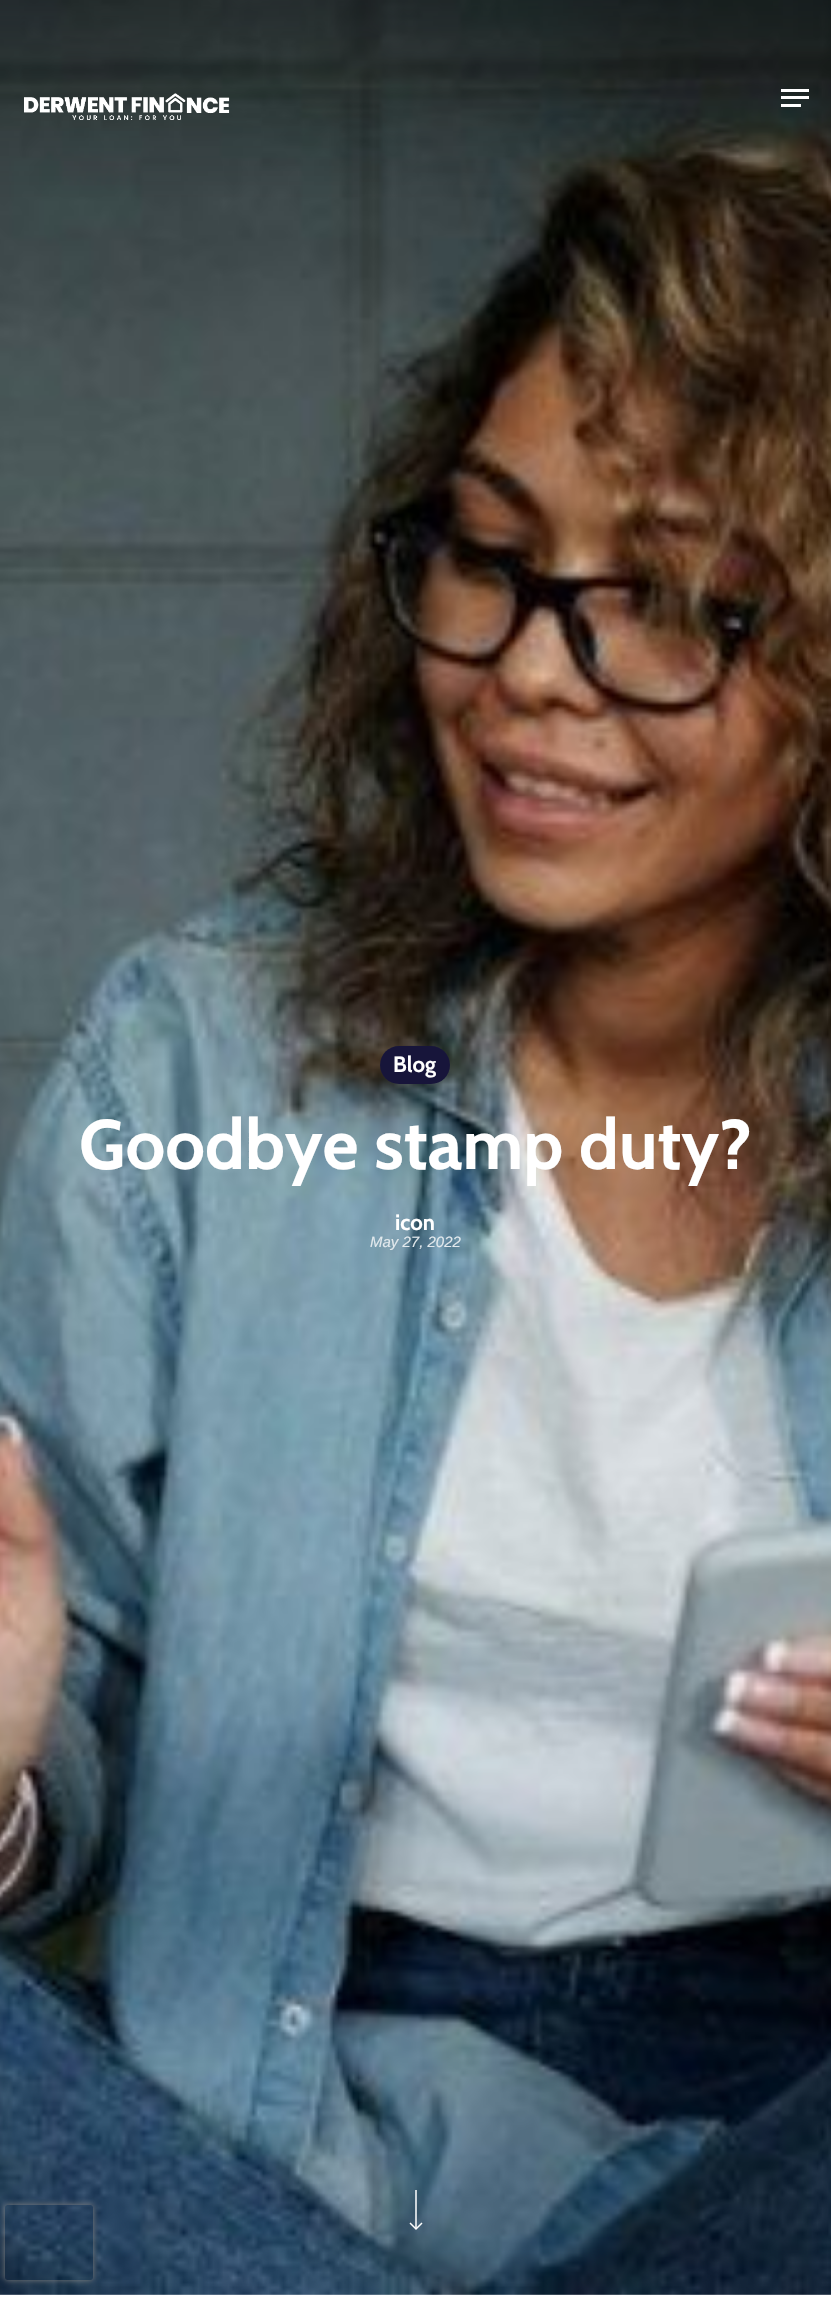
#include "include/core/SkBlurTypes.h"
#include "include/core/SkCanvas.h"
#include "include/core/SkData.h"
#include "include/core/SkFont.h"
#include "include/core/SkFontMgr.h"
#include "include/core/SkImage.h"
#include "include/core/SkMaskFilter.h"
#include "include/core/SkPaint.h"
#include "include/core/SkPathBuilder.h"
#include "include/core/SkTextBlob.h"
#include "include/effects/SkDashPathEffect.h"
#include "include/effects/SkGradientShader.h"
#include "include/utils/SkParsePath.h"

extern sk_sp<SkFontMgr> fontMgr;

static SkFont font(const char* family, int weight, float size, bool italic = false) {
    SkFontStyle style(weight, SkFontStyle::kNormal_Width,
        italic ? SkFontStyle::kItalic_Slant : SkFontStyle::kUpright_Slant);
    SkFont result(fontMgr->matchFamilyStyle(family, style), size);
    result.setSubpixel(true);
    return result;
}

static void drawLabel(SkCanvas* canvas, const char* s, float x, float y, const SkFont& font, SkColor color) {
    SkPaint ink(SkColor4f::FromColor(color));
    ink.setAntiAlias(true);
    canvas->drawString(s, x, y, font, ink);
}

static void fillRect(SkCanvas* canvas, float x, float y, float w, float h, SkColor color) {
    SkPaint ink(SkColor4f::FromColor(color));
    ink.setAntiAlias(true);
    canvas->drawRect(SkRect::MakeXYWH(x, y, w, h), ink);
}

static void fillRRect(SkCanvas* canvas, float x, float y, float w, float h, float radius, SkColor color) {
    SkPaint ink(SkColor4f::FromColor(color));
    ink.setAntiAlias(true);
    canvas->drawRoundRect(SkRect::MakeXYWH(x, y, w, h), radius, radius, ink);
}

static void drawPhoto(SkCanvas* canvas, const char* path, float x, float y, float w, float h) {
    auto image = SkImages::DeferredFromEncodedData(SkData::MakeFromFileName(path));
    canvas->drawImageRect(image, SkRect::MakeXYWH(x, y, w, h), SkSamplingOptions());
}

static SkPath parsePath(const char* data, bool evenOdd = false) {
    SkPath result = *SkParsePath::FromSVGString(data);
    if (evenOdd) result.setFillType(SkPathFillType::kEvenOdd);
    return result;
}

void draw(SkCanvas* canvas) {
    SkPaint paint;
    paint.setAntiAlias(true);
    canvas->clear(0xFFFFFFFF);
    drawPhoto(canvas, "assets/img2.png", 0, 0, 831, 2295);
    drawPhoto(canvas, "assets/img1.png", 24, 93, 206, 27);
    fillRect(canvas, 781, 89, 28, 3, 0xFFFFFFFF);
    fillRect(canvas, 781, 104, 20, 3, 0xFFFFFFFF);
    fillRect(canvas, 781, 96, 28, 3, 0xFFFFFFFF);
    fillRRect(canvas, 380, 1046, 70, 38, 19, 0xFF17153A);
    SkFont font1 = font("Cabin", 700, 22);
    drawLabel(canvas, "Blog", 393, 1072, font1, 0xFFFFFFFF);
    SkFont font2 = font("Cabin", 700, 69.9f);
    drawLabel(canvas, "Goodbye stamp duty?", 79, 1169, font2, 0xFFFFFFFF);
    drawLabel(canvas, "icon", 395, 1230, font1, 0xFFFFFFFF);
    SkFont font3 = font("Liberation Sans", 400, 15, true);
    drawLabel(canvas, "May 27, 2022", 370, 1247, font3, 0xFFE2E9ED);
    fillRect(canvas, 415, 2190, 2, 39, 0xBFFFFFFF);
    paint.setStroke(true);
    paint.setStrokeWidth(1.5f);
    paint.setColor(0xFFFFFFFF);
    canvas->drawPath(parsePath("M410 2223L416 2229L422 2223"), paint);
    canvas->save();
    canvas->clipPath(parsePath("M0 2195H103V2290H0ZM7.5 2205H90.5C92 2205 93 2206 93 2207.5V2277.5C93 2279 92 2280 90.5 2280H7.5C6 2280 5 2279 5 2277.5V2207.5C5 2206 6 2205 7.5 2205Z", true), true);
    paint.setStroke(false);
    paint.setColor(0xFF808080);
    paint.setMaskFilter(SkMaskFilter::MakeBlur(kNormal_SkBlurStyle, 3));
    canvas->drawRoundRect(SkRect::MakeXYWH(5, 2205, 88, 75), 2.5f, 2.5f, paint);
    paint.setMaskFilter(nullptr);
    canvas->restore();
}
